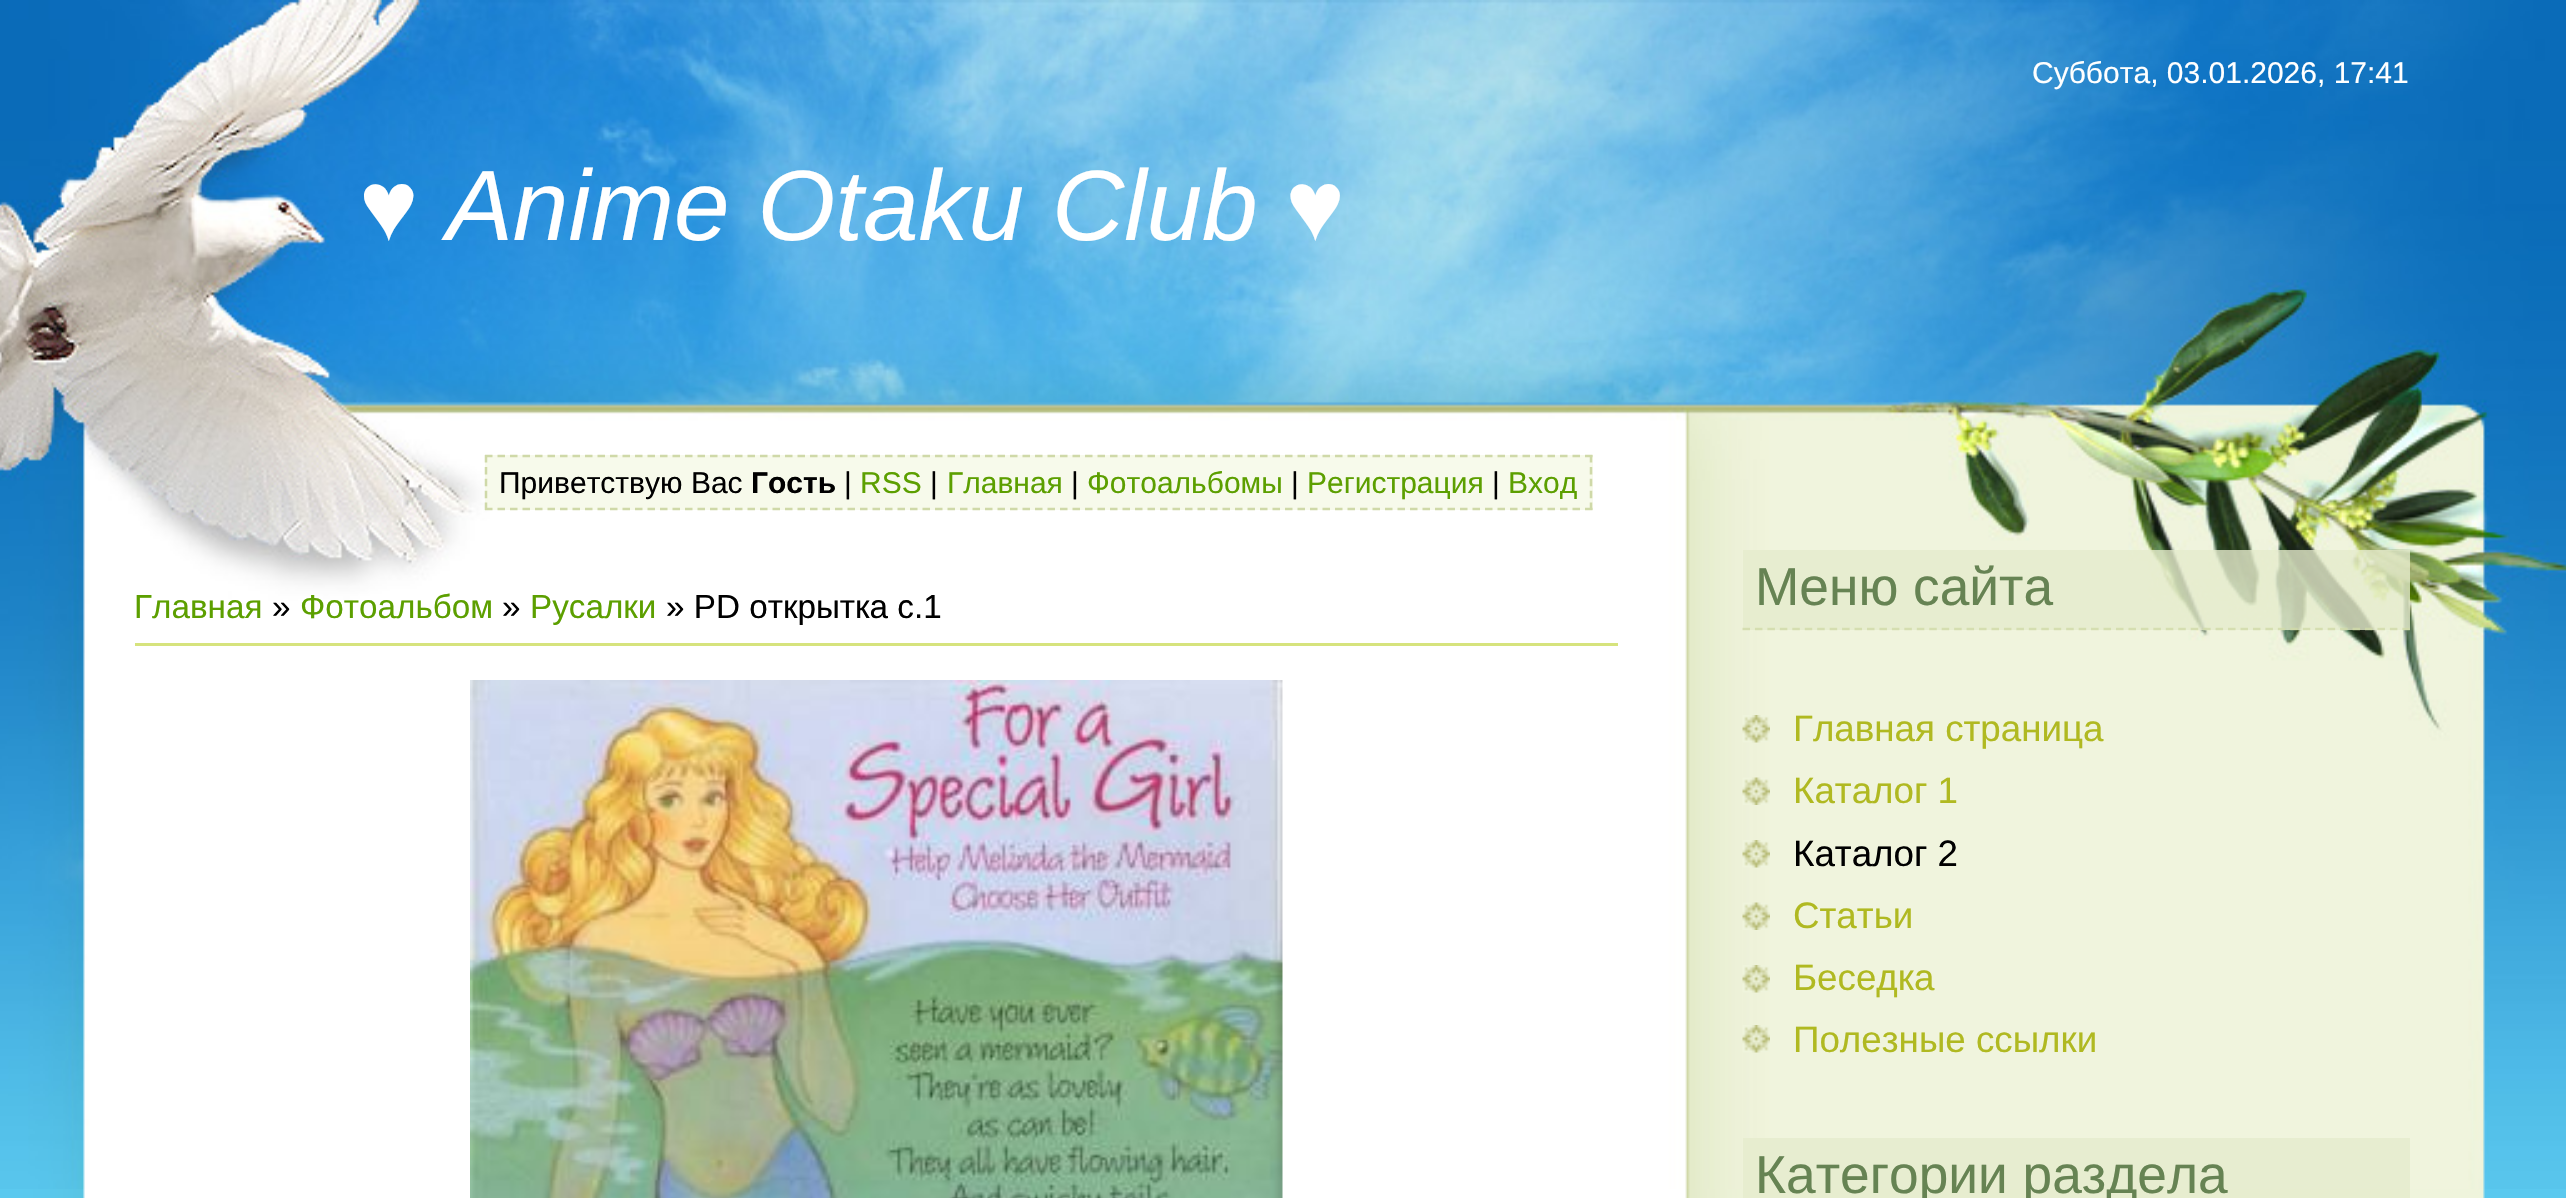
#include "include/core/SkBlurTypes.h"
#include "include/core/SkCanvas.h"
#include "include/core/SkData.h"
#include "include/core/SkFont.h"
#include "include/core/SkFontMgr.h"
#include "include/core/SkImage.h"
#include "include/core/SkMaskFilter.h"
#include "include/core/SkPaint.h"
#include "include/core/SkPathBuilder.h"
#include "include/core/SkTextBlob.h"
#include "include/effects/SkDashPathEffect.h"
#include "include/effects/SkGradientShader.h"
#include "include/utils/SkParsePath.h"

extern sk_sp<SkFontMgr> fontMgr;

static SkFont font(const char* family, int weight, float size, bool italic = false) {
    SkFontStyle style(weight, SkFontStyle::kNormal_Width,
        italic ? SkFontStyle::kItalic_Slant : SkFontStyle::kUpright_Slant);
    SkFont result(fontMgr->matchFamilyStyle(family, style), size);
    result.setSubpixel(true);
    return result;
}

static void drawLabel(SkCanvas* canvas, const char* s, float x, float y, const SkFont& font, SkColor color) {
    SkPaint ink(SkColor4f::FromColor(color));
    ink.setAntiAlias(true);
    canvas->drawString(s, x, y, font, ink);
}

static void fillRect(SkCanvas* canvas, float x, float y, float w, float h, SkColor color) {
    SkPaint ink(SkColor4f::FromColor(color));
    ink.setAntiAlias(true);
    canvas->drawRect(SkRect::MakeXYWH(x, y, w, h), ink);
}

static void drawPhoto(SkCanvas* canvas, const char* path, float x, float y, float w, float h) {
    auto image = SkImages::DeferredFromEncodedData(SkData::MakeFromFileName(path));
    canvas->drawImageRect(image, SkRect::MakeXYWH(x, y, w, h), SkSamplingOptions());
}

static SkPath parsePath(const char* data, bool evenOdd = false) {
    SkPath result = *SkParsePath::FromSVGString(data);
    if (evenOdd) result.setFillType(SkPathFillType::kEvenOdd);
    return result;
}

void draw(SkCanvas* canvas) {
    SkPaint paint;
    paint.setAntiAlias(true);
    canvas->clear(0xFFFFFFFF);
    drawPhoto(canvas, "assets/img1.png", 0, 1189, 2566, 9);
    drawPhoto(canvas, "assets/img2.png", 0, 0, 2566, 1189);
    SkFont font1 = font("Liberation Sans", 400, 30);
    drawLabel(canvas, "Суббота, 03.01.2026, 17:41", 2032, 83, font1, 0xFFFFFFFF);
    SkFont font2 = font("Liberation Sans", 400, 100, true);
    drawLabel(canvas, "♥ Anime Otaku Club ♥", 359, 240, font2, 0xFFFFFFFF);
    fillRect(canvas, 485, 455, 1108, 55, 0xFFF7FAEB);
    paint.setStroke(true);
    paint.setStrokeWidth(2.5f);
    paint.setColor(0xFFCFD9A8);
    paint.setPathEffect(SkDashPathEffect::Make({{7.5f, 5}}, 0));
    canvas->drawPath(parsePath("M485 456H1592.5"), paint);
    paint.setPathEffect(nullptr);
    paint.setPathEffect(SkDashPathEffect::Make({{7.5f, 4.38f}}, 0));
    canvas->drawPath(parsePath("M1591 455V510"), paint);
    paint.setPathEffect(nullptr);
    paint.setPathEffect(SkDashPathEffect::Make({{7.5f, 5}}, 0));
    canvas->drawPath(parsePath("M485 509H1592.5"), paint);
    paint.setPathEffect(nullptr);
    paint.setPathEffect(SkDashPathEffect::Make({{7.5f, 4.38f}}, 0));
    canvas->drawPath(parsePath("M486 455V510"), paint);
    paint.setPathEffect(nullptr);
    drawLabel(canvas, "Приветствую Вас", 499, 493, font1, 0xFF000000);
    SkFont font3 = font("Liberation Sans", 700, 30);
    drawLabel(canvas, "Гость", 751, 493, font3, 0xFF000000);
    drawLabel(canvas, "|", 844, 493, font1, 0xFF000000);
    drawLabel(canvas, "RSS", 860, 493, font1, 0xFF5C9F00);
    drawLabel(canvas, "|", 930, 493, font1, 0xFF000000);
    drawLabel(canvas, "Главная", 947, 493, font1, 0xFF5C9F00);
    drawLabel(canvas, "|", 1071, 493, font1, 0xFF000000);
    drawLabel(canvas, "Фотоальбомы", 1087, 493, font1, 0xFF5C9F00);
    drawLabel(canvas, "|", 1291, 493, font1, 0xFF000000);
    drawLabel(canvas, "Регистрация", 1307, 493, font1, 0xFF5C9F00);
    drawLabel(canvas, "|", 1492, 493, font1, 0xFF000000);
    drawLabel(canvas, "Вход", 1508, 493, font1, 0xFF5C9F00);
    SkFont font4 = font("Liberation Sans", 400, 33.25f);
    drawLabel(canvas, "Главная", 134, 618, font4, 0xFF5C9F00);
    drawLabel(canvas, "»", 272, 618, font4, 0xFF000000);
    drawLabel(canvas, "Фотоальбом", 300, 618, font4, 0xFF5C9F00);
    drawLabel(canvas, "»", 502, 618, font4, 0xFF000000);
    drawLabel(canvas, "Русалки", 530, 618, font4, 0xFF5C9F00);
    drawLabel(canvas, "» PD открытка с.1", 666, 618, font4, 0xFF000000);
    fillRect(canvas, 135, 643, 1483, 3, 0xFFD6E37D);
    drawPhoto(canvas, "assets/img3.png", 470, 680, 813, 518);
    fillRect(canvas, 1743, 550, 667, 80, 0xCCE5EBCC);
    paint.setColor(0xCCCFD9A8);
    paint.setPathEffect(SkDashPathEffect::Make({{7.5f, 4.95f}}, 0));
    canvas->drawPath(parsePath("M1742.5 629H2410"), paint);
    paint.setPathEffect(nullptr);
    SkFont font5 = font("Liberation Sans", 400, 53.25f);
    drawLabel(canvas, "Меню сайта", 1755, 605, font5, 0xFF668353);
    drawPhoto(canvas, "assets/img4.png", 1742, 715, 28, 28);
    SkFont font6 = font("Liberation Sans", 400, 36.75f);
    drawLabel(canvas, "Главная страница", 1793, 741, font6, 0xFFB0B921);
    drawPhoto(canvas, "assets/img5.png", 1742, 777, 28, 28);
    drawLabel(canvas, "Каталог 1", 1793, 803, font6, 0xFFB0B921);
    drawPhoto(canvas, "assets/img4.png", 1742, 840, 28, 28);
    drawLabel(canvas, "Каталог 2", 1793, 866, font6, 0xFF000000);
    drawPhoto(canvas, "assets/img6.png", 1742, 902, 28, 28);
    drawLabel(canvas, "Статьи", 1793, 928, font6, 0xFFB0B921);
    drawPhoto(canvas, "assets/img4.png", 1742, 965, 28, 28);
    drawLabel(canvas, "Беседка", 1793, 990, font6, 0xFFB0B921);
    drawPhoto(canvas, "assets/img7.png", 1742, 1025, 28, 28);
    drawLabel(canvas, "Полезные ссылки", 1793, 1052, font6, 0xFFB0B921);
    fillRect(canvas, 1743, 1138, 667, 60, 0xCCE5EBCC);
    drawLabel(canvas, "Категории раздела", 1755, 1193, font5, 0xFF668353);
}
